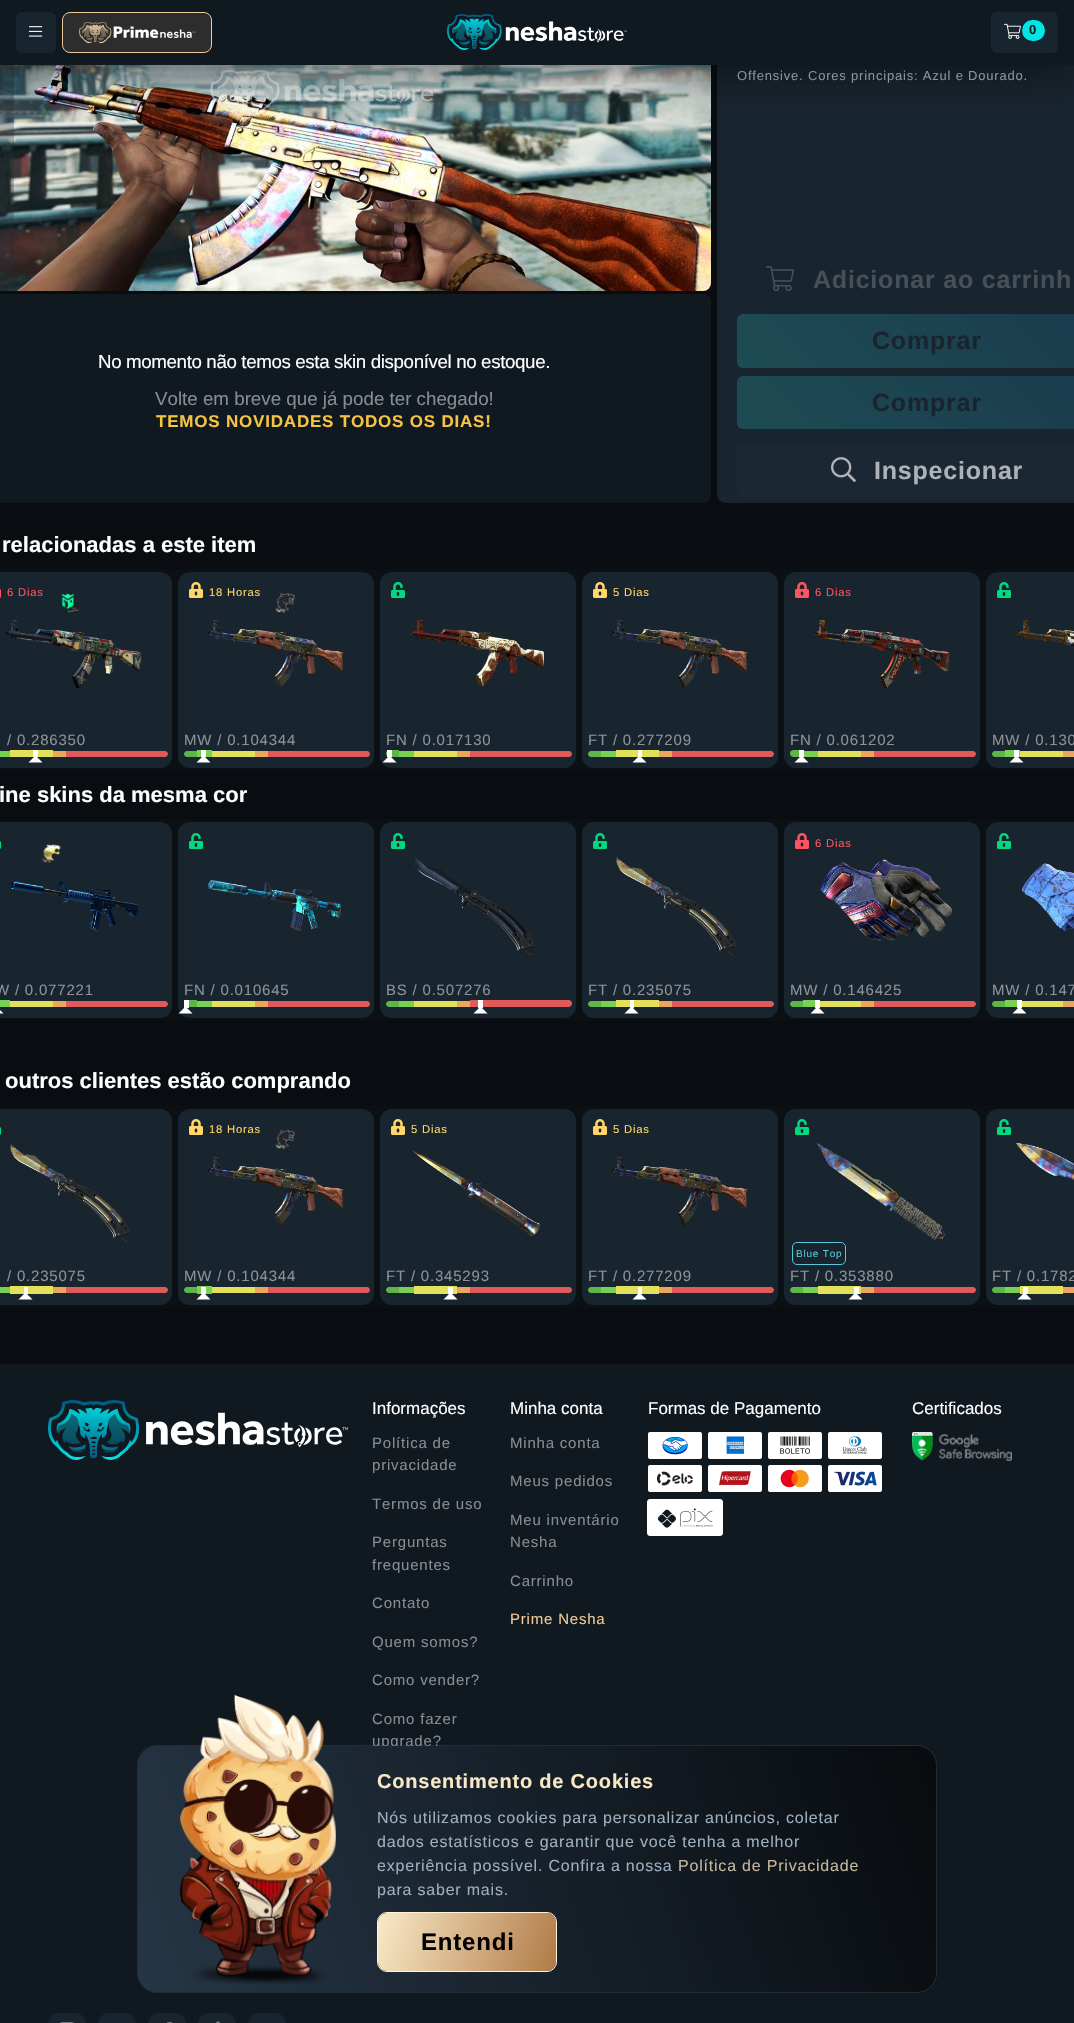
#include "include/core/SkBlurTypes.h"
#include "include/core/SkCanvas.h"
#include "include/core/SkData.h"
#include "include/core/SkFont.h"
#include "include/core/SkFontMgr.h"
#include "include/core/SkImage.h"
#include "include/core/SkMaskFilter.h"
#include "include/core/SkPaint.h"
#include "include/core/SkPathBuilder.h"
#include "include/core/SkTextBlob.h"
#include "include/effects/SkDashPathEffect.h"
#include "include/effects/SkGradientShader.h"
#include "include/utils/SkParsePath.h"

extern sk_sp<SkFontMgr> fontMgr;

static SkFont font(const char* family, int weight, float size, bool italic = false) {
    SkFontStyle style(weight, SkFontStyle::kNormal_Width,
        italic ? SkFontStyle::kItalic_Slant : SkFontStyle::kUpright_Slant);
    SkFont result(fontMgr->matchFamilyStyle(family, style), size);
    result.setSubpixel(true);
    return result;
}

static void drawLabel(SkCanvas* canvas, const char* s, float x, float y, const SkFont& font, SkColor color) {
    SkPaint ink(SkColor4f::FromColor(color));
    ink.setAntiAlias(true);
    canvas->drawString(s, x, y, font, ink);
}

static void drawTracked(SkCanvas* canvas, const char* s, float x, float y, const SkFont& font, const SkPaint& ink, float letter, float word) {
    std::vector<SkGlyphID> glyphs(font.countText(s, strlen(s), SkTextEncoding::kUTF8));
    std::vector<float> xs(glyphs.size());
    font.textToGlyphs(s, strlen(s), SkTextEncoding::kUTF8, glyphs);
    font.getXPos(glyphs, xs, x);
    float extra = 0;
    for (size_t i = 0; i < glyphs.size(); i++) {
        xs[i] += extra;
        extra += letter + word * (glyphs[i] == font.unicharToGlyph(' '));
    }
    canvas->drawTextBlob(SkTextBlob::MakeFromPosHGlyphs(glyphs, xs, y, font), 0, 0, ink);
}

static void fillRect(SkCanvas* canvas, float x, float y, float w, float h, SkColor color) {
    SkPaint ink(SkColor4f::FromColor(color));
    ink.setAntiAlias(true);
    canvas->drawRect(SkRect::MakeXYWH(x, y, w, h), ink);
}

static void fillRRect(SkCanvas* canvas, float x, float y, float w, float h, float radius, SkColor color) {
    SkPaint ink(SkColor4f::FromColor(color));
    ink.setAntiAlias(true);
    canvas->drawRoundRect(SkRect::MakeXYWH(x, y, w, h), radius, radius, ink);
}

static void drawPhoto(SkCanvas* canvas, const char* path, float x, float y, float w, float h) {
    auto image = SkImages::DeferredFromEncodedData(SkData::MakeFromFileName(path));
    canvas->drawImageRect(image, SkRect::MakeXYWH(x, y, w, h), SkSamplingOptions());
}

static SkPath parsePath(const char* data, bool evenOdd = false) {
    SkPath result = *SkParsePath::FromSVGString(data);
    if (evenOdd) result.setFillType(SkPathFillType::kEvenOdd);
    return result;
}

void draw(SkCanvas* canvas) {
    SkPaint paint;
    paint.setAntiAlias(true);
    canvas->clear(0xFF090D11);
    fillRRect(canvas, -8, -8, 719, 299, 8, 0xFF101820);
    drawPhoto(canvas, "assets/img5.png", 0, 65, 711, 226);
    fillRect(canvas, 0, 65, 14, 226, 0x4D1D2A36);
    fillRRect(canvas, 717, -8, 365, 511, 8, 0xFF101820);
    fillRRect(canvas, 717, -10, 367, 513, 10, 0xFF18242E);
    paint.setColor(0x99000000);
    paint.setMaskFilter(SkMaskFilter::MakeBlur(kNormal_SkBlurStyle, 25));
    canvas->drawRect(SkRect::MakeXYWH(-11, -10, 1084, 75), paint);
    paint.setMaskFilter(nullptr);
    fillRect(canvas, 0, 0, 1074, 65, 0xFF101820);
    paint.setColor(0xFF18242E);
    canvas->drawRoundRect(SkRect::MakeXYWH(16.5f, 12.5f, 39, 40), 5.5f, 5.5f, paint);
    paint.setStroke(true);
    paint.setStrokeWidth(1);
    canvas->drawRoundRect(SkRect::MakeXYWH(16.5f, 12.5f, 39, 40), 5.5f, 5.5f, paint);
    drawPhoto(canvas, "assets/img1.png", 29, 26, 14, 11);
    paint.setStroke(false);
    paint.setColor(0xFF2D2D2D);
    canvas->drawRoundRect(SkRect::MakeXYWH(62.5f, 12.5f, 149, 40), 7.5f, 7.5f, paint);
    paint.setStroke(true);
    paint.setColor(0xFFEECA96);
    canvas->drawRoundRect(SkRect::MakeXYWH(62.5f, 12.5f, 149, 40), 7.5f, 7.5f, paint);
    drawPhoto(canvas, "assets/img2.png", 79, 22, 116, 21);
    drawPhoto(canvas, "assets/img3.png", 447, 14, 180, 36);
    paint.setStroke(false);
    paint.setColor(0xFF18242E);
    canvas->drawRoundRect(SkRect::MakeXYWH(991.5f, 12.5f, 66, 40), 5.5f, 5.5f, paint);
    paint.setStroke(true);
    canvas->drawRoundRect(SkRect::MakeXYWH(991.5f, 12.5f, 66, 40), 5.5f, 5.5f, paint);
    drawPhoto(canvas, "assets/img4.png", 1004, 23, 17, 16);
    fillRRect(canvas, 1022, 20, 23, 21, 10.5f, 0xFF00E5E5);
    SkFont font1 = font("Liberation Sans", 700, 13);
    paint.setStroke(false);
    paint.setColor(0xFF101820);
    drawTracked(canvas, "0", 1029, 34, font1, paint, 0.8f, 0);
    fillRRect(canvas, -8, 294, 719, 209, 8, 0xFF101820);
    SkFont font2 = font("Liberation Sans", 400, 18.75f);
    paint.setColor(0xFFFFFFFF);
    drawTracked(canvas, "No momento não temos esta skin disponível no estoque.", 98, 368, font2, paint, -0.38f, 0);
    drawLabel(canvas, "Volte em breve que já pode ter chegado!", 155, 405, font2, 0xFF888C90);
    SkFont font3 = font("Liberation Sans", 700, 17);
    paint.setColor(0xFFF6C343);
    drawTracked(canvas, "TEMOS NOVIDADES TODOS OS DIAS!", 156, 427, font3, paint, 0.8f, 0);
    SkFont font4 = font("Liberation Sans", 400, 13);
    paint.setColor(0xFF8C9297);
    drawTracked(canvas, "Offensive. Cores principais: Azul e Dourado.", 737, 80, font4, paint, 0.8f, 0);
    drawPhoto(canvas, "assets/img6.png", 766, 266, 28, 25);
    SkFont font5 = font("Liberation Sans", 700, 25);
    paint.setColor(0xFF465058);
    drawTracked(canvas, "Adicionar ao carrinh", 813, 288, font5, paint, 0.8f, 0);
    {
        const SkColor colors[] = {0xFF1D4C54, 0xFF1B3A4D};
        const float stops[] = {0, 1};
        const SkPoint ends[] = {{819, 450}, {1036, 233}};
        paint.setShader(SkGradientShader::MakeLinear(ends, colors, stops, 2, SkTileMode::kClamp));
        paint.setAlpha(255);
    }
    canvas->drawRoundRect(SkRect::MakeXYWH(737, 314, 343, 54), 6, 6, paint);
    paint.setShader(nullptr);
    paint.setColor(0xFF18242E);
    drawTracked(canvas, "Comprar", 872, 349, font5, paint, 0.8f, 0);
    {
        const SkColor colors[] = {0xFF1D4C54, 0xFF1B3A4D};
        const float stops[] = {0, 1};
        const SkPoint ends[] = {{819, 511}, {1035, 294}};
        paint.setShader(SkGradientShader::MakeLinear(ends, colors, stops, 2, SkTileMode::kClamp));
        paint.setAlpha(255);
    }
    canvas->drawRoundRect(SkRect::MakeXYWH(737, 376, 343, 53), 6, 6, paint);
    paint.setShader(nullptr);
    paint.setColor(0xFF18242E);
    drawTracked(canvas, "Comprar", 872, 411, font5, paint, 0.8f, 0);
    fillRRect(canvas, 737, 444, 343, 54, 6, 0xFF1B2833);
    drawPhoto(canvas, "assets/img7.png", 831, 457, 25, 26);
    paint.setColor(0xFFAEB2B6);
    drawTracked(canvas, "Inspecionar", 874, 479, font5, paint, 0.8f, 0);
    SkFont font6 = font("Liberation Sans", 700, 22);
    drawLabel(canvas, "relacionadas a este item", 2, 552, font6, 0xFFFFFFFF);
    fillRect(canvas, 0, 569, 1074, 202, 0xFF0B1015);
    fillRRect(canvas, -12, 572, 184, 196, 12, 0xFF18242E);
    drawPhoto(canvas, "assets/img8.png", 0, 589, 1, 9);
    SkFont font7 = font("Liberation Sans", 400, 11.25f);
    paint.setColor(0xFFFF545F);
    drawTracked(canvas, "6 Dias", 7, 596, font7, paint, 0.8f, 0);
    drawPhoto(canvas, "assets/img9.png", 61, 593, 18, 20);
    drawPhoto(canvas, "assets/img10.png", 6, 620, 136, 69);
    SkFont font8 = font("Liberation Sans", 400, 15);
    paint.setColor(0xFF8C9297);
    drawTracked(canvas, "/ 0.286350", 7, 745, font8, paint, 0.8f, 0);
    fillRect(canvas, 0, 751, 10, 6, 0xFF79D154);
    fillRect(canvas, 10, 750, 43, 7, 0xFFE3E15B);
    fillRect(canvas, 53, 751, 13, 6, 0xFFE8A75C);
    paint.setColor(0xFFE05A59);
    canvas->drawPath(parsePath("M66 751H165C166.5 751 168 752.5 168 754C168 755.5 166.5 757 165 757H66Z"), paint);
    fillRect(canvas, 33, 750, 5, 7, 0xFFFFFFFF);
    paint.setColor(0xFFFFFFFF);
    canvas->drawPath(parsePath("M42.5 762.5H28.5L35.5 755.5Z"), paint);
    fillRRect(canvas, 178, 572, 196, 196, 12, 0xFF18242E);
    drawPhoto(canvas, "assets/img11.png", 189, 582, 14, 16);
    paint.setColor(0xFFFFD667);
    drawTracked(canvas, "18 Horas", 209, 596, font7, paint, 0.8f, 0);
    drawPhoto(canvas, "assets/img12.png", 275, 593, 20, 20);
    drawPhoto(canvas, "assets/img13.png", 207, 620, 137, 68);
    paint.setColor(0xFF8C9297);
    drawTracked(canvas, "MW / 0.104344", 184, 745, font8, paint, 0.8f, 0);
    paint.setColor(0xFF5EB648);
    canvas->drawPath(parsePath("M187 751H197V757H187C185.5 757 184 755.5 184 754C184 752.5 185.5 751 187 751Z"), paint);
    fillRect(canvas, 197, 750, 15, 7, 0xFF79D154);
    fillRect(canvas, 212, 751, 43, 6, 0xFFE3E15B);
    fillRect(canvas, 255, 751, 13, 6, 0xFFE8A75C);
    paint.setColor(0xFFE05A59);
    canvas->drawPath(parsePath("M268 751H367C368.5 751 370 752.5 370 754C370 755.5 368.5 757 367 757H268Z"), paint);
    fillRect(canvas, 201, 750, 5, 7, 0xFFFFFFFF);
    paint.setColor(0xFFFFFFFF);
    canvas->drawPath(parsePath("M210.5 762.5H196.5L203.5 755.5Z"), paint);
    fillRRect(canvas, 380, 572, 196, 196, 12, 0xFF18242E);
    drawPhoto(canvas, "assets/img14.png", 391, 582, 14, 16);
    drawPhoto(canvas, "assets/img15.png", 410, 620, 134, 67);
    paint.setColor(0xFF8C9297);
    drawTracked(canvas, "FN / 0.017130", 386, 745, font8, paint, 0.8f, 0);
    paint.setColor(0xFF5EB648);
    canvas->drawPath(parsePath("M389.5 750H399V757H389.5C387.5 757 386 755.5 386 753.5C386 751.5 387.5 750 389.5 750Z"), paint);
    fillRect(canvas, 387, 750, 5, 7, 0xFFFFFFFF);
    paint.setColor(0xFFFFFFFF);
    canvas->drawPath(parsePath("M396.5 762.5H382.5L389.5 755.5Z"), paint);
    fillRect(canvas, 399, 751, 15, 6, 0xFF79D154);
    fillRect(canvas, 414, 751, 43, 6, 0xFFE3E15B);
    fillRect(canvas, 457, 751, 13, 6, 0xFFE8A75C);
    paint.setColor(0xFFE05A59);
    canvas->drawPath(parsePath("M470 751H569C570.5 751 572 752.5 572 754C572 755.5 570.5 757 569 757H470Z"), paint);
    fillRRect(canvas, 582, 572, 196, 196, 12, 0xFF18242E);
    drawPhoto(canvas, "assets/img11.png", 593, 582, 14, 16);
    paint.setColor(0xFFFFD667);
    drawTracked(canvas, "5 Dias", 613, 596, font7, paint, 0.8f, 0);
    drawPhoto(canvas, "assets/img16.png", 611, 620, 137, 69);
    paint.setColor(0xFF8C9297);
    drawTracked(canvas, "FT / 0.277209", 588, 745, font8, paint, 0.8f, 0);
    paint.setColor(0xFF5EB648);
    canvas->drawPath(parsePath("M591 751H601V757H591C589.5 757 588 755.5 588 754C588 752.5 589.5 751 591 751Z"), paint);
    fillRect(canvas, 601, 751, 15, 6, 0xFF79D154);
    fillRect(canvas, 616, 750, 43, 7, 0xFFE3E15B);
    fillRect(canvas, 659, 751, 13, 6, 0xFFE8A75C);
    paint.setColor(0xFFE05A59);
    canvas->drawPath(parsePath("M672 751H771C772.5 751 774 752.5 774 754C774 755.5 772.5 757 771 757H672Z"), paint);
    fillRect(canvas, 638, 750, 4, 7, 0xFFFFFFFF);
    paint.setColor(0xFFFFFFFF);
    canvas->drawPath(parsePath("M646.5 762.5H632.5L639.5 755.5Z"), paint);
    fillRRect(canvas, 784, 572, 196, 196, 12, 0xFF18242E);
    drawPhoto(canvas, "assets/img17.png", 795, 582, 14, 16);
    paint.setColor(0xFFFF545F);
    drawTracked(canvas, "6 Dias", 815, 596, font7, paint, 0.8f, 0);
    drawPhoto(canvas, "assets/img18.png", 813, 620, 137, 69);
    paint.setColor(0xFF8C9297);
    drawTracked(canvas, "FN / 0.061202", 790, 745, font8, paint, 0.8f, 0);
    paint.setColor(0xFF5EB648);
    canvas->drawPath(parsePath("M793.5 750H803V757H793.5C791.5 757 790 755.5 790 753.5C790 751.5 791.5 750 793.5 750Z"), paint);
    fillRect(canvas, 803, 751, 15, 6, 0xFF79D154);
    fillRect(canvas, 818, 751, 43, 6, 0xFFE3E15B);
    fillRect(canvas, 861, 751, 13, 6, 0xFFE8A75C);
    paint.setColor(0xFFE05A59);
    canvas->drawPath(parsePath("M874 751H973C974.5 751 976 752.5 976 754C976 755.5 974.5 757 973 757H874Z"), paint);
    fillRect(canvas, 799, 750, 5, 7, 0xFFFFFFFF);
    paint.setColor(0xFFFFFFFF);
    canvas->drawPath(parsePath("M808.5 762.5H794.5L801.5 755.5Z"), paint);
    paint.setColor(0xFF18242E);
    canvas->drawPath(parsePath("M998 572H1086V768H998C991.5 768 986 762.5 986 756V584C986 577.5 991.5 572 998 572Z"), paint);
    drawPhoto(canvas, "assets/img14.png", 997, 582, 14, 16);
    drawPhoto(canvas, "assets/img19.png", 1016, 620, 58, 27);
    paint.setColor(0xFF8C9297);
    drawTracked(canvas, "MW / 0.130", 992, 745, font8, paint, 0.8f, 0);
    paint.setColor(0xFF5EB648);
    canvas->drawPath(parsePath("M995 751H1005V757H995C993.5 757 992 755.5 992 754C992 752.5 993.5 751 995 751Z"), paint);
    fillRect(canvas, 1005, 750, 15, 7, 0xFF79D154);
    fillRect(canvas, 1020, 751, 43, 6, 0xFFE3E15B);
    fillRect(canvas, 1063, 751, 11, 6, 0xFFE8A75C);
    fillRect(canvas, 1014, 750, 5, 7, 0xFFFFFFFF);
    paint.setColor(0xFFFFFFFF);
    canvas->drawPath(parsePath("M1023.5 762.5H1009.5L1016.5 755.5Z"), paint);
    drawLabel(canvas, "ine skins da mesma cor", -1, 802, font6, 0xFFFFFFFF);
    fillRect(canvas, 0, 819, 1074, 202, 0xFF0B1015);
    fillRRect(canvas, -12, 822, 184, 196, 12, 0xFF18242E);
    drawPhoto(canvas, "assets/img20.png", 0, 841, 1, 8);
    drawPhoto(canvas, "assets/img21.png", 41, 844, 20, 19);
    drawPhoto(canvas, "assets/img22.png", 10, 881, 129, 50);
    paint.setColor(0xFF8C9297);
    drawTracked(canvas, "W / 0.077221", -5, 995, font8, paint, 0.8f, 0);
    fillRect(canvas, 0, 1000, 10, 7, 0xFF79D154);
    fillRect(canvas, 10, 1001, 43, 6, 0xFFE3E15B);
    fillRect(canvas, 53, 1001, 13, 6, 0xFFE8A75C);
    paint.setColor(0xFFE05A59);
    canvas->drawPath(parsePath("M66 1001H165C166.5 1001 168 1002.5 168 1004C168 1005.5 166.5 1007 165 1007H66Z"), paint);
    paint.setColor(0xFFFFFFFF);
    canvas->drawPath(parsePath("M3.5 1013.5H-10.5L-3.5 1006.5Z"), paint);
    fillRRect(canvas, 178, 822, 196, 196, 12, 0xFF18242E);
    drawPhoto(canvas, "assets/img14.png", 189, 833, 14, 16);
    drawPhoto(canvas, "assets/img23.png", 208, 880, 133, 51);
    paint.setColor(0xFF8C9297);
    drawTracked(canvas, "FN / 0.010645", 184, 995, font8, paint, 0.8f, 0);
    fillRect(canvas, 184, 1000, 13, 7, 0xFF5EB648);
    fillRect(canvas, 184, 1000, 5, 8, 0xFFFFFFFF);
    paint.setColor(0xFFFFFFFF);
    canvas->drawPath(parsePath("M192.5 1013.5H178.5L185.5 1006.5Z"), paint);
    fillRect(canvas, 197, 1001, 15, 6, 0xFF79D154);
    fillRect(canvas, 212, 1001, 43, 6, 0xFFE3E15B);
    fillRect(canvas, 255, 1001, 13, 6, 0xFFE8A75C);
    paint.setColor(0xFFE05A59);
    canvas->drawPath(parsePath("M268 1001H367C368.5 1001 370 1002.5 370 1004C370 1005.5 368.5 1007 367 1007H268Z"), paint);
    fillRRect(canvas, 380, 822, 196, 196, 12, 0xFF18242E);
    drawPhoto(canvas, "assets/img14.png", 391, 833, 14, 16);
    drawPhoto(canvas, "assets/img24.png", 414, 857, 121, 99);
    paint.setColor(0xFF8C9297);
    drawTracked(canvas, "BS / 0.507276", 386, 995, font8, paint, 0.8f, 0);
    paint.setColor(0xFF5EB648);
    canvas->drawPath(parsePath("M389 1001H399V1007H389C387.5 1007 386 1005.5 386 1004C386 1002.5 387.5 1001 389 1001Z"), paint);
    fillRect(canvas, 399, 1001, 15, 6, 0xFF79D154);
    fillRect(canvas, 414, 1001, 43, 6, 0xFFE3E15B);
    fillRect(canvas, 457, 1001, 13, 6, 0xFFE8A75C);
    paint.setColor(0xFFE05A59);
    canvas->drawPath(parsePath("M470 1000H568.5C570.5 1000 572 1001.5 572 1003.5C572 1005.5 570.5 1007 568.5 1007H470Z"), paint);
    fillRect(canvas, 478, 1000, 5, 8, 0xFFFFFFFF);
    paint.setColor(0xFFFFFFFF);
    canvas->drawPath(parsePath("M487.5 1013.5H473.5L480.5 1006.5Z"), paint);
    fillRRect(canvas, 582, 822, 196, 196, 12, 0xFF18242E);
    drawPhoto(canvas, "assets/img14.png", 593, 833, 14, 16);
    drawPhoto(canvas, "assets/img25.png", 616, 856, 121, 100);
    paint.setColor(0xFF8C9297);
    drawTracked(canvas, "FT / 0.235075", 588, 995, font8, paint, 0.8f, 0);
    paint.setColor(0xFF5EB648);
    canvas->drawPath(parsePath("M591 1001H601V1007H591C589.5 1007 588 1005.5 588 1004C588 1002.5 589.5 1001 591 1001Z"), paint);
    fillRect(canvas, 601, 1001, 15, 6, 0xFF79D154);
    fillRect(canvas, 616, 1000, 43, 7, 0xFFE3E15B);
    fillRect(canvas, 659, 1001, 13, 6, 0xFFE8A75C);
    paint.setColor(0xFFE05A59);
    canvas->drawPath(parsePath("M672 1001H771C772.5 1001 774 1002.5 774 1004C774 1005.5 772.5 1007 771 1007H672Z"), paint);
    fillRect(canvas, 630, 1000, 4, 8, 0xFFFFFFFF);
    paint.setColor(0xFFFFFFFF);
    canvas->drawPath(parsePath("M638.5 1013.5H624.5L631.5 1006.5Z"), paint);
    fillRRect(canvas, 784, 822, 196, 196, 12, 0xFF18242E);
    drawPhoto(canvas, "assets/img17.png", 795, 833, 14, 16);
    paint.setColor(0xFFFF545F);
    drawTracked(canvas, "6 Dias", 815, 847, font7, paint, 0.8f, 0);
    drawPhoto(canvas, "assets/img26.png", 820, 859, 132, 82);
    paint.setColor(0xFF8C9297);
    drawTracked(canvas, "MW / 0.146425", 790, 995, font8, paint, 0.8f, 0);
    paint.setColor(0xFF5EB648);
    canvas->drawPath(parsePath("M793 1001H803V1007H793C791.5 1007 790 1005.5 790 1004C790 1002.5 791.5 1001 793 1001Z"), paint);
    fillRect(canvas, 803, 1000, 15, 7, 0xFF79D154);
    fillRect(canvas, 818, 1001, 43, 6, 0xFFE3E15B);
    fillRect(canvas, 861, 1001, 13, 6, 0xFFE8A75C);
    paint.setColor(0xFFE05A59);
    canvas->drawPath(parsePath("M874 1001H973C974.5 1001 976 1002.5 976 1004C976 1005.5 974.5 1007 973 1007H874Z"), paint);
    fillRect(canvas, 815, 1000, 5, 8, 0xFFFFFFFF);
    paint.setColor(0xFFFFFFFF);
    canvas->drawPath(parsePath("M824.5 1013.5H810.5L817.5 1006.5Z"), paint);
    paint.setColor(0xFF18242E);
    canvas->drawPath(parsePath("M998 822H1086V1018H998C991.5 1018 986 1012.5 986 1006V834C986 827.5 991.5 822 998 822Z"), paint);
    drawPhoto(canvas, "assets/img14.png", 997, 833, 14, 16);
    drawPhoto(canvas, "assets/img27.png", 1021, 863, 53, 69);
    paint.setColor(0xFF8C9297);
    drawTracked(canvas, "MW / 0.147", 992, 995, font8, paint, 0.8f, 0);
    paint.setColor(0xFF5EB648);
    canvas->drawPath(parsePath("M995 1001H1005V1007H995C993.5 1007 992 1005.5 992 1004C992 1002.5 993.5 1001 995 1001Z"), paint);
    fillRect(canvas, 1005, 1000, 15, 7, 0xFF79D154);
    fillRect(canvas, 1020, 1001, 43, 6, 0xFFE3E15B);
    fillRect(canvas, 1063, 1001, 11, 6, 0xFFE8A75C);
    fillRect(canvas, 1017, 1000, 5, 8, 0xFFFFFFFF);
    paint.setColor(0xFFFFFFFF);
    canvas->drawPath(parsePath("M1026.5 1013.5H1012.5L1019.5 1006.5Z"), paint);
    drawLabel(canvas, "outros clientes estão comprando", 5, 1088, font6, 0xFFFFFFFF);
    fillRect(canvas, 0, 1106, 1074, 202, 0xFF0B1015);
    fillRRect(canvas, -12, 1109, 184, 196, 12, 0xFF18242E);
    drawPhoto(canvas, "assets/img20.png", 0, 1127, 1, 8);
    drawPhoto(canvas, "assets/img28.png", 10, 1143, 121, 100);
    paint.setColor(0xFF8C9297);
    drawTracked(canvas, "/ 0.235075", 7, 1281, font8, paint, 0.8f, 0);
    fillRect(canvas, 0, 1287, 10, 6, 0xFF79D154);
    fillRect(canvas, 10, 1286, 43, 8, 0xFFE3E15B);
    fillRect(canvas, 53, 1287, 13, 6, 0xFFE8A75C);
    paint.setColor(0xFFE05A59);
    canvas->drawPath(parsePath("M66 1287H165C166.5 1287 168 1288.5 168 1290C168 1291.5 166.5 1293 165 1293H66Z"), paint);
    fillRect(canvas, 24, 1287, 4, 7, 0xFFFFFFFF);
    paint.setColor(0xFFFFFFFF);
    canvas->drawPath(parsePath("M32.5 1299.5H18.5L25.5 1292.5Z"), paint);
    fillRRect(canvas, 178, 1109, 196, 196, 12, 0xFF18242E);
    drawPhoto(canvas, "assets/img11.png", 189, 1119, 14, 16);
    paint.setColor(0xFFFFD667);
    drawTracked(canvas, "18 Horas", 209, 1133, font7, paint, 0.8f, 0);
    drawPhoto(canvas, "assets/img29.png", 275, 1129, 20, 20);
    drawPhoto(canvas, "assets/img30.png", 207, 1157, 137, 68);
    paint.setColor(0xFF8C9297);
    drawTracked(canvas, "MW / 0.104344", 184, 1281, font8, paint, 0.8f, 0);
    paint.setColor(0xFF5EB648);
    canvas->drawPath(parsePath("M187 1287H197V1293H187C185.5 1293 184 1291.5 184 1290C184 1288.5 185.5 1287 187 1287Z"), paint);
    fillRect(canvas, 197, 1286, 15, 8, 0xFF79D154);
    fillRect(canvas, 212, 1287, 43, 6, 0xFFE3E15B);
    fillRect(canvas, 255, 1287, 13, 6, 0xFFE8A75C);
    paint.setColor(0xFFE05A59);
    canvas->drawPath(parsePath("M268 1287H367C368.5 1287 370 1288.5 370 1290C370 1291.5 368.5 1293 367 1293H268Z"), paint);
    fillRect(canvas, 201, 1287, 5, 7, 0xFFFFFFFF);
    paint.setColor(0xFFFFFFFF);
    canvas->drawPath(parsePath("M210.5 1299.5H196.5L203.5 1292.5Z"), paint);
    fillRRect(canvas, 380, 1109, 196, 196, 12, 0xFF18242E);
    drawPhoto(canvas, "assets/img11.png", 391, 1119, 14, 16);
    paint.setColor(0xFFFFD667);
    drawTracked(canvas, "5 Dias", 411, 1133, font7, paint, 0.8f, 0);
    drawPhoto(canvas, "assets/img31.png", 412, 1150, 128, 87);
    paint.setColor(0xFF8C9297);
    drawTracked(canvas, "FT / 0.345293", 386, 1281, font8, paint, 0.8f, 0);
    paint.setColor(0xFF5EB648);
    canvas->drawPath(parsePath("M389 1287H399V1293H389C387.5 1293 386 1291.5 386 1290C386 1288.5 387.5 1287 389 1287Z"), paint);
    fillRect(canvas, 399, 1287, 15, 6, 0xFF79D154);
    fillRect(canvas, 414, 1286, 43, 8, 0xFFE3E15B);
    fillRect(canvas, 457, 1287, 13, 6, 0xFFE8A75C);
    paint.setColor(0xFFE05A59);
    canvas->drawPath(parsePath("M470 1287H569C570.5 1287 572 1288.5 572 1290C572 1291.5 570.5 1293 569 1293H470Z"), paint);
    fillRect(canvas, 448, 1287, 5, 7, 0xFFFFFFFF);
    paint.setColor(0xFFFFFFFF);
    canvas->drawPath(parsePath("M457.5 1299.5H443.5L450.5 1292.5Z"), paint);
    fillRRect(canvas, 582, 1109, 196, 196, 12, 0xFF18242E);
    drawPhoto(canvas, "assets/img11.png", 593, 1119, 14, 16);
    paint.setColor(0xFFFFD667);
    drawTracked(canvas, "5 Dias", 613, 1133, font7, paint, 0.8f, 0);
    drawPhoto(canvas, "assets/img32.png", 611, 1157, 137, 69);
    paint.setColor(0xFF8C9297);
    drawTracked(canvas, "FT / 0.277209", 588, 1281, font8, paint, 0.8f, 0);
    paint.setColor(0xFF5EB648);
    canvas->drawPath(parsePath("M591 1287H601V1293H591C589.5 1293 588 1291.5 588 1290C588 1288.5 589.5 1287 591 1287Z"), paint);
    fillRect(canvas, 601, 1287, 15, 6, 0xFF79D154);
    fillRect(canvas, 616, 1286, 43, 8, 0xFFE3E15B);
    fillRect(canvas, 659, 1287, 13, 6, 0xFFE8A75C);
    paint.setColor(0xFFE05A59);
    canvas->drawPath(parsePath("M672 1287H771C772.5 1287 774 1288.5 774 1290C774 1291.5 772.5 1293 771 1293H672Z"), paint);
    fillRect(canvas, 638, 1287, 4, 7, 0xFFFFFFFF);
    paint.setColor(0xFFFFFFFF);
    canvas->drawPath(parsePath("M646.5 1299.5H632.5L639.5 1292.5Z"), paint);
    fillRRect(canvas, 784, 1109, 196, 196, 12, 0xFF18242E);
    drawPhoto(canvas, "assets/img14.png", 795, 1119, 14, 16);
    drawPhoto(canvas, "assets/img33.png", 817, 1143, 128, 97);
    paint.setStroke(true);
    paint.setColor(0xFF57C7D9);
    canvas->drawRoundRect(SkRect::MakeXYWH(792.5f, 1242.5f, 53, 22), 4.5f, 4.5f, paint);
    SkFont font9 = font("Liberation Sans", 400, 10);
    paint.setStroke(false);
    drawTracked(canvas, "Blue Top", 796, 1257, font9, paint, 0.8f, 0);
    paint.setColor(0xFF8C9297);
    drawTracked(canvas, "FT / 0.353880", 790, 1281, font8, paint, 0.8f, 0);
    paint.setColor(0xFF5EB648);
    canvas->drawPath(parsePath("M793 1287H803V1293H793C791.5 1293 790 1291.5 790 1290C790 1288.5 791.5 1287 793 1287Z"), paint);
    fillRect(canvas, 803, 1287, 15, 6, 0xFF79D154);
    fillRect(canvas, 818, 1286, 43, 8, 0xFFE3E15B);
    fillRect(canvas, 861, 1287, 13, 6, 0xFFE8A75C);
    paint.setColor(0xFFE05A59);
    canvas->drawPath(parsePath("M874 1287H973C974.5 1287 976 1288.5 976 1290C976 1291.5 974.5 1293 973 1293H874Z"), paint);
    fillRect(canvas, 854, 1287, 5, 7, 0xFFFFFFFF);
    paint.setColor(0xFFFFFFFF);
    canvas->drawPath(parsePath("M862.5 1299.5H848.5L855.5 1292.5Z"), paint);
    paint.setColor(0xFF18242E);
    canvas->drawPath(parsePath("M998 1109H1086V1305H998C991.5 1305 986 1299.5 986 1293V1121C986 1114.5 991.5 1109 998 1109Z"), paint);
    drawPhoto(canvas, "assets/img14.png", 997, 1119, 14, 16);
    drawPhoto(canvas, "assets/img34.png", 1016, 1143, 58, 37);
    paint.setColor(0xFF8C9297);
    drawTracked(canvas, "FT / 0.1782", 992, 1281, font8, paint, 0.8f, 0);
    paint.setColor(0xFF5EB648);
    canvas->drawPath(parsePath("M995 1287H1005V1293H995C993.5 1293 992 1291.5 992 1290C992 1288.5 993.5 1287 995 1287Z"), paint);
    fillRect(canvas, 1005, 1287, 15, 6, 0xFF79D154);
    fillRect(canvas, 1020, 1286, 43, 8, 0xFFE3E15B);
    fillRect(canvas, 1063, 1287, 11, 6, 0xFFE8A75C);
    fillRect(canvas, 1023, 1287, 5, 7, 0xFFFFFFFF);
    paint.setColor(0xFFFFFFFF);
    canvas->drawPath(parsePath("M1031.5 1299.5H1017.5L1024.5 1292.5Z"), paint);
    fillRect(canvas, 0, 1364, 1074, 659, 0xFF101820);
    drawPhoto(canvas, "assets/img35.png", 48, 1400, 300, 60);
    SkFont font10 = font("Liberation Sans", 400, 17);
    drawLabel(canvas, "Informações", 372, 1414, font10, 0xFFFFFFFF);
    paint.setColor(0xFF888C90);
    drawTracked(canvas, "Política de", 372, 1448, font8, paint, 0.8f, 0);
    drawTracked(canvas, "privacidade", 372, 1470, font8, paint, 0.8f, 0);
    drawTracked(canvas, "Termos de uso", 372, 1509, font8, paint, 0.8f, 0);
    drawTracked(canvas, "Perguntas", 372, 1547, font8, paint, 0.8f, 0);
    drawTracked(canvas, "frequentes", 372, 1570, font8, paint, 0.8f, 0);
    drawTracked(canvas, "Contato", 372, 1608, font8, paint, 0.8f, 0);
    drawTracked(canvas, "Quem somos?", 372, 1647, font8, paint, 0.8f, 0);
    drawTracked(canvas, "Como vender?", 372, 1685, font8, paint, 0.8f, 0);
    drawTracked(canvas, "Como fazer", 372, 1724, font8, paint, 0.8f, 0);
    drawTracked(canvas, "upgrade?", 372, 1746, font8, paint, 0.8f, 0);
    drawLabel(canvas, "Minha conta", 510, 1414, font10, 0xFFFFFFFF);
    drawTracked(canvas, "Minha conta", 510, 1448, font8, paint, 0.8f, 0);
    drawTracked(canvas, "Meus pedidos", 510, 1486, font8, paint, 0.8f, 0);
    drawTracked(canvas, "Meu inventário", 510, 1525, font8, paint, 0.8f, 0);
    drawTracked(canvas, "Nesha", 510, 1547, font8, paint, 0.8f, 0);
    drawTracked(canvas, "Carrinho", 510, 1586, font8, paint, 0.8f, 0);
    paint.setColor(0xFFEECA96);
    drawTracked(canvas, "Prime Nesha", 510, 1624, font8, paint, 0.8f, 0);
    drawLabel(canvas, "Formas de Pagamento", 648, 1414, font10, 0xFFFFFFFF);
    drawPhoto(canvas, "assets/img36.png", 648, 1432, 54, 27);
    drawPhoto(canvas, "assets/img37.png", 708, 1432, 54, 27);
    drawPhoto(canvas, "assets/img38.png", 768, 1432, 54, 27);
    drawPhoto(canvas, "assets/img39.png", 828, 1432, 54, 27);
    drawPhoto(canvas, "assets/img40.png", 648, 1465, 54, 27);
    drawPhoto(canvas, "assets/img41.png", 708, 1465, 54, 27);
    drawPhoto(canvas, "assets/img42.png", 768, 1465, 54, 27);
    drawPhoto(canvas, "assets/img43.png", 828, 1465, 54, 27);
    drawPhoto(canvas, "assets/img44.png", 647, 1499, 76, 37);
    drawLabel(canvas, "Certificados", 912, 1414, font10, 0xFFFFFFFF);
    drawPhoto(canvas, "assets/img45.png", 912, 1432, 100, 29);
    fillRRect(canvas, 48, 2013, 38, 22, 12, 0xFF18242E);
    drawPhoto(canvas, "assets/img46.png", 60, 2022, 14, 1);
    fillRRect(canvas, 98, 2013, 38, 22, 12, 0xFF18242E);
    fillRRect(canvas, 148, 2013, 38, 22, 12, 0xFF18242E);
    drawPhoto(canvas, "assets/img47.png", 166, 2022, 7, 1);
    fillRRect(canvas, 198, 2013, 38, 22, 12, 0xFF18242E);
    drawPhoto(canvas, "assets/img48.png", 216, 2021, 4, 2);
    fillRRect(canvas, 248, 2013, 38, 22, 12, 0xFF18242E);
    {
        const SkColor colors[] = {0xFF263646, 0xFF080B0E};
        const float stops[] = {0, 1};
        const SkPoint ends[] = {{142, 2005}, {932, 1733}};
        paint.setShader(SkGradientShader::MakeLinear(ends, colors, stops, 2, SkTileMode::kClamp));
        paint.setAlpha(255);
    }
    canvas->drawRoundRect(SkRect::MakeXYWH(138, 1746, 798, 246), 19, 19, paint);
    paint.setStroke(true);
    paint.setShader(nullptr);
    paint.setColor(0x4F425A6F);
    canvas->drawRoundRect(SkRect::MakeXYWH(137.5f, 1745.5f, 799, 247), 19.5f, 19.5f, paint);
    drawPhoto(canvas, "assets/img49.png", 180, 1695, 156, 290);
    SkFont font11 = font("Liberation Sans", 700, 20);
    paint.setStroke(false);
    paint.setColor(0xFFF8E8C5);
    drawTracked(canvas, "Consentimento de Cookies", 377, 1788, font11, paint, 0.8f, 0);
    SkFont font12 = font("Liberation Sans", 400, 16);
    paint.setColor(0xFF9DAFBF);
    drawTracked(canvas, "Nós utilizamos cookies para personalizar anúncios, coletar", 377, 1823, font12, paint, 0.8f, 0);
    drawTracked(canvas, "dados estatísticos e garantir que você tenha a melhor", 377, 1847, font12, paint, 0.8f, 0);
    drawTracked(canvas, "experiência possível. Confira a nossa", 377, 1871, font12, paint, 0.8f, 0);
    paint.setColor(0xFFC3B79D);
    drawTracked(canvas, "Política de Privacidade", 678, 1871, font12, paint, 0.8f, 0);
    paint.setColor(0xFF9DAFBF);
    drawTracked(canvas, "para saber mais.", 377, 1895, font12, paint, 0.8f, 0);
    {
        const SkColor colors[] = {0xFFF9EAC7, 0xFFB17A47};
        const float stops[] = {0, 1};
        const SkPoint ends[] = {{378, 1913}, {556, 1971}};
        paint.setShader(SkGradientShader::MakeLinear(ends, colors, stops, 2, SkTileMode::kClamp));
        paint.setAlpha(255);
    }
    canvas->drawRoundRect(SkRect::MakeXYWH(378, 1913, 178, 58), 9, 9, paint);
    paint.setStroke(true);
    paint.setShader(nullptr);
    paint.setColor(0xFFFFF3D6);
    canvas->drawRoundRect(SkRect::MakeXYWH(377.5f, 1912.5f, 179, 59), 9.5f, 9.5f, paint);
    SkFont font13 = font("Liberation Sans", 700, 24);
    paint.setStroke(false);
    paint.setColor(0xFF000000);
    drawTracked(canvas, "Entendi", 421, 1950, font13, paint, 0.8f, 0);
}
